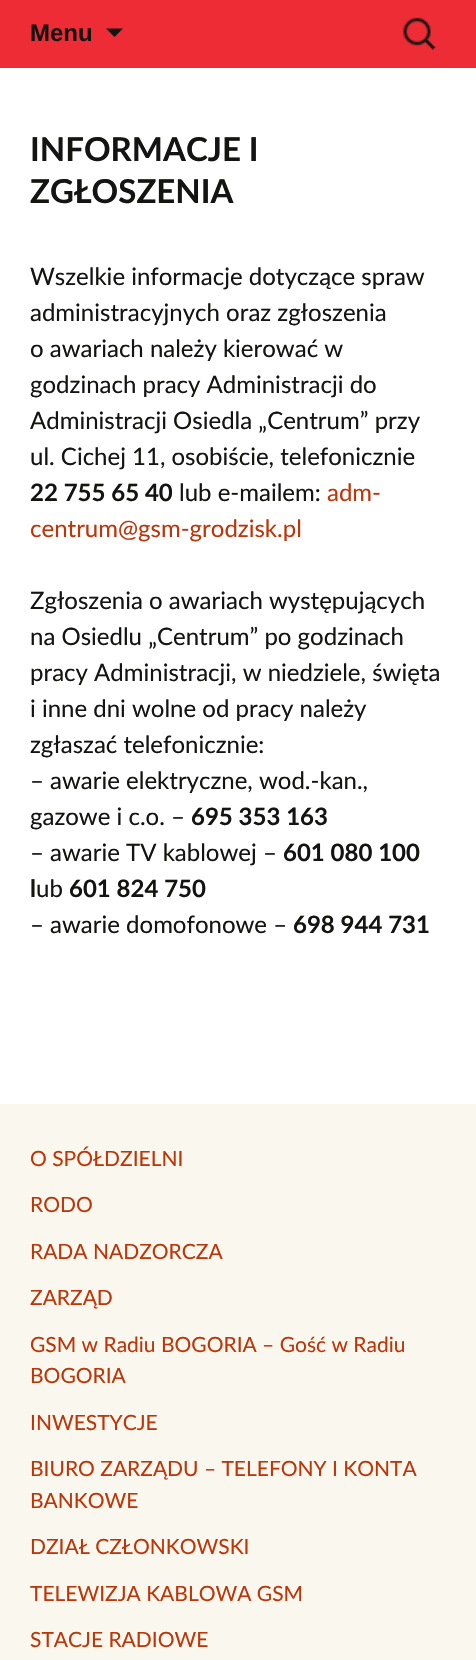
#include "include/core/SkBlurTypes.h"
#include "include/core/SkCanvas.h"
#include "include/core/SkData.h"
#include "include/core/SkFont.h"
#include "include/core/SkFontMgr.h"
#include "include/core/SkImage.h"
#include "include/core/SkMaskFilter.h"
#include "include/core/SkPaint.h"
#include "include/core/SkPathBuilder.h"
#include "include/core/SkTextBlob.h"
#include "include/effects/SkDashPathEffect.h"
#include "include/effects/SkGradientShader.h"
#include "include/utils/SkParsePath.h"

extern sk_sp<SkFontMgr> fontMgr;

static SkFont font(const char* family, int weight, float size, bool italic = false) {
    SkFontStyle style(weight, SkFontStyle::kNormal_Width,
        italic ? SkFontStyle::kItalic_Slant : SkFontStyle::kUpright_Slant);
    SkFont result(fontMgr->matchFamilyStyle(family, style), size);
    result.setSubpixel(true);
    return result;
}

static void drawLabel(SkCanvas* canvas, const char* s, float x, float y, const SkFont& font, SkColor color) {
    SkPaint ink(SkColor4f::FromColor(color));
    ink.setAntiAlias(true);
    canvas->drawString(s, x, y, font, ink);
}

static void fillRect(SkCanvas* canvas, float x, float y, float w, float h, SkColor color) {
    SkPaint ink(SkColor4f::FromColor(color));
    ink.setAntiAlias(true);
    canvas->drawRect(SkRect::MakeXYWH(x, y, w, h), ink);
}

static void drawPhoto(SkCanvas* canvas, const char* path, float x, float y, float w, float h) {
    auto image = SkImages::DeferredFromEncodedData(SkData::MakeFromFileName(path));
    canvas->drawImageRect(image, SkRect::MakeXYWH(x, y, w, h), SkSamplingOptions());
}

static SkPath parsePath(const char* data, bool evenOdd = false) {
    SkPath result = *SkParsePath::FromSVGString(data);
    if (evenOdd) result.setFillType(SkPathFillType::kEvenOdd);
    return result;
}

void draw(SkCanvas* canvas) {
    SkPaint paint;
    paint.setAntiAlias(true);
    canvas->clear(0xFFFFFFFF);
    fillRect(canvas, 0, 0, 476, 68, 0xFFED2C35);
    SkFont font1 = font("Liberation Sans", 700, 24);
    drawLabel(canvas, "Menu", 30, 41, font1, 0xFF141412);
    paint.setColor(0xFF141412);
    canvas->drawPath(parsePath("M106 28.5L114.5 37L123 28.5Z"), paint);
    drawPhoto(canvas, "assets/img1.png", 403, 17, 33, 33);
    SkFont font2 = font("Lato", 700, 33);
    drawLabel(canvas, "INFORMACJE I", 30, 161, font2, 0xFF141412);
    drawLabel(canvas, "ZGŁOSZENIA", 30, 203, font2, 0xFF141412);
    SkFont font3 = font("Lato", 400, 24);
    drawLabel(canvas, "Wszelkie informacje dotyczące spraw", 30, 285, font3, 0xFF141412);
    drawLabel(canvas, "administracyjnych oraz zgłoszenia", 30, 321, font3, 0xFF141412);
    drawLabel(canvas, "o awariach należy kierować w", 30, 357, font3, 0xFF141412);
    drawLabel(canvas, "godzinach pracy Administracji do", 30, 393, font3, 0xFF141412);
    drawLabel(canvas, "Administracji Osiedla „Centrum” przy", 30, 429, font3, 0xFF141412);
    drawLabel(canvas, "ul. Cichej 11, osobiście, telefonicznie", 30, 465, font3, 0xFF141412);
    SkFont font4 = font("Lato", 700, 24);
    drawLabel(canvas, "22 755 65 40", 30, 501, font4, 0xFF141412);
    drawLabel(canvas, "lub e-mailem:", 179, 501, font3, 0xFF141412);
    drawLabel(canvas, "adm-", 327, 501, font3, 0xFFBC360A);
    drawLabel(canvas, "centrum@gsm-grodzisk.pl", 30, 537, font3, 0xFFBC360A);
    drawLabel(canvas, "Zgłoszenia o awariach występujących", 30, 609, font3, 0xFF141412);
    drawLabel(canvas, "na Osiedlu „Centrum” po godzinach", 30, 645, font3, 0xFF141412);
    drawLabel(canvas, "pracy Administracji, w niedziele, święta", 30, 681, font3, 0xFF141412);
    drawLabel(canvas, "i inne dni wolne od pracy należy", 30, 717, font3, 0xFF141412);
    drawLabel(canvas, "zgłaszać telefonicznie:", 30, 753, font3, 0xFF141412);
    drawLabel(canvas, "– awarie elektryczne, wod.-kan.,", 30, 789, font3, 0xFF141412);
    drawLabel(canvas, "gazowe i c.o. –", 30, 825, font3, 0xFF141412);
    drawLabel(canvas, "695 353 163", 191, 825, font4, 0xFF141412);
    drawLabel(canvas, "– awarie TV kablowej –", 30, 861, font3, 0xFF141412);
    drawLabel(canvas, "601 080 100", 283, 861, font4, 0xFF141412);
    drawLabel(canvas, "l", 30, 897, font4, 0xFF141412);
    drawLabel(canvas, "ub", 36, 897, font3, 0xFF141412);
    drawLabel(canvas, "601 824 750", 69, 897, font4, 0xFF141412);
    drawLabel(canvas, "– awarie domofonowe –", 30, 933, font3, 0xFF141412);
    drawLabel(canvas, "698 944 731", 293, 933, font4, 0xFF141412);
    fillRect(canvas, 0, 1104, 476, 556, 0xFFFAF8EE);
    SkFont font5 = font("Lato", 400, 21);
    drawLabel(canvas, "O SPÓŁDZIELNI", 30, 1166, font5, 0xFFBC360A);
    drawLabel(canvas, "RODO", 30, 1212, font5, 0xFFBC360A);
    drawLabel(canvas, "RADA NADZORCZA", 30, 1259, font5, 0xFFBC360A);
    drawLabel(canvas, "ZARZĄD", 30, 1305, font5, 0xFFBC360A);
    drawLabel(canvas, "GSM w Radiu BOGORIA – Gość w Radiu", 30, 1352, font5, 0xFFBC360A);
    drawLabel(canvas, "BOGORIA", 30, 1383, font5, 0xFFBC360A);
    drawLabel(canvas, "INWESTYCJE", 30, 1430, font5, 0xFFBC360A);
    drawLabel(canvas, "BIURO ZARZĄDU – TELEFONY I KONTA", 30, 1476, font5, 0xFFBC360A);
    drawLabel(canvas, "BANKOWE", 30, 1508, font5, 0xFFBC360A);
    drawLabel(canvas, "DZIAŁ CZŁONKOWSKI", 30, 1554, font5, 0xFFBC360A);
    drawLabel(canvas, "TELEWIZJA KABLOWA GSM", 30, 1601, font5, 0xFFBC360A);
    drawLabel(canvas, "STACJE RADIOWE", 30, 1647, font5, 0xFFBC360A);
}
